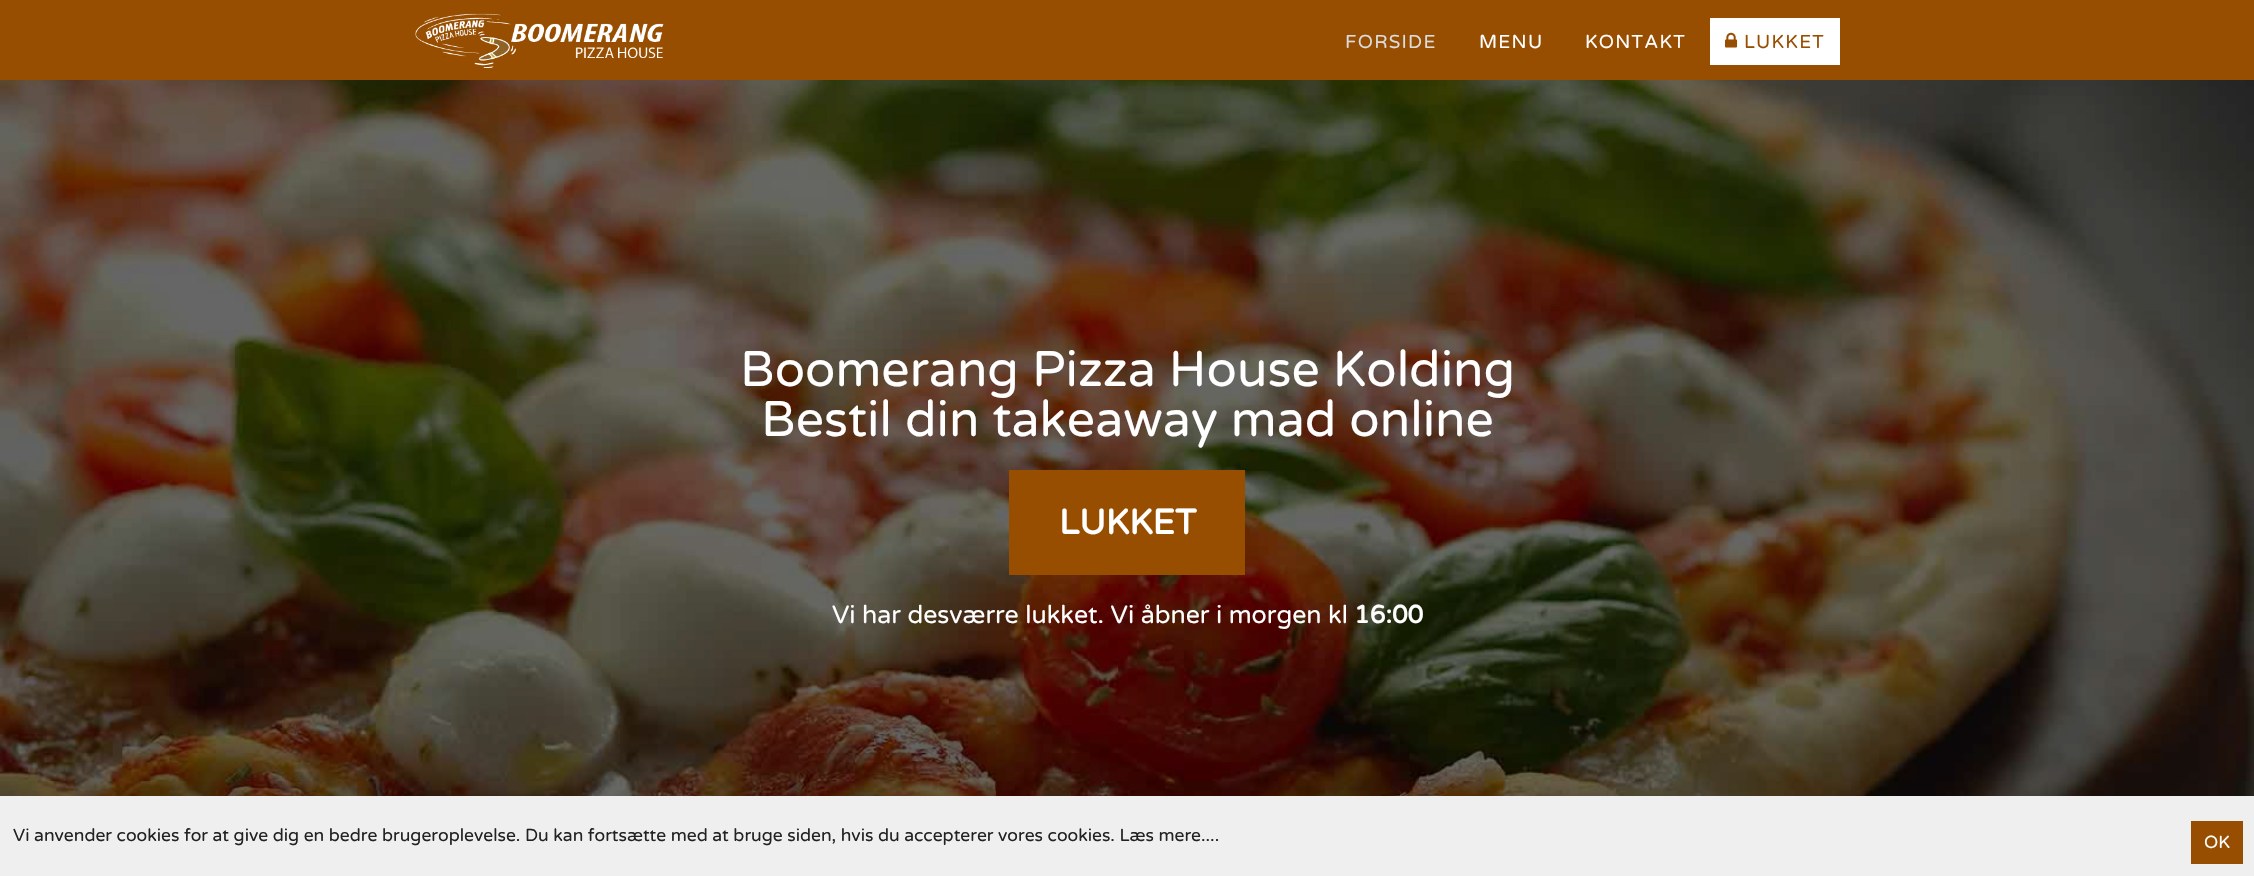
#include "include/core/SkBlurTypes.h"
#include "include/core/SkCanvas.h"
#include "include/core/SkData.h"
#include "include/core/SkFont.h"
#include "include/core/SkFontMgr.h"
#include "include/core/SkImage.h"
#include "include/core/SkMaskFilter.h"
#include "include/core/SkPaint.h"
#include "include/core/SkPathBuilder.h"
#include "include/core/SkTextBlob.h"
#include "include/effects/SkDashPathEffect.h"
#include "include/effects/SkGradientShader.h"
#include "include/utils/SkParsePath.h"

extern sk_sp<SkFontMgr> fontMgr;

static SkFont font(const char* family, int weight, float size, bool italic = false) {
    SkFontStyle style(weight, SkFontStyle::kNormal_Width,
        italic ? SkFontStyle::kItalic_Slant : SkFontStyle::kUpright_Slant);
    SkFont result(fontMgr->matchFamilyStyle(family, style), size);
    result.setSubpixel(true);
    return result;
}

static void drawLabel(SkCanvas* canvas, const char* s, float x, float y, const SkFont& font, SkColor color) {
    SkPaint ink(SkColor4f::FromColor(color));
    ink.setAntiAlias(true);
    canvas->drawString(s, x, y, font, ink);
}

static void drawTracked(SkCanvas* canvas, const char* s, float x, float y, const SkFont& font, const SkPaint& ink, float letter, float word) {
    std::vector<SkGlyphID> glyphs(font.countText(s, strlen(s), SkTextEncoding::kUTF8));
    std::vector<float> xs(glyphs.size());
    font.textToGlyphs(s, strlen(s), SkTextEncoding::kUTF8, glyphs);
    font.getXPos(glyphs, xs, x);
    float extra = 0;
    for (size_t i = 0; i < glyphs.size(); i++) {
        xs[i] += extra;
        extra += letter + word * (glyphs[i] == font.unicharToGlyph(' '));
    }
    canvas->drawTextBlob(SkTextBlob::MakeFromPosHGlyphs(glyphs, xs, y, font), 0, 0, ink);
}

static void fillRect(SkCanvas* canvas, float x, float y, float w, float h, SkColor color) {
    SkPaint ink(SkColor4f::FromColor(color));
    ink.setAntiAlias(true);
    canvas->drawRect(SkRect::MakeXYWH(x, y, w, h), ink);
}

static void drawPhoto(SkCanvas* canvas, const char* path, float x, float y, float w, float h) {
    auto image = SkImages::DeferredFromEncodedData(SkData::MakeFromFileName(path));
    canvas->drawImageRect(image, SkRect::MakeXYWH(x, y, w, h), SkSamplingOptions());
}

void draw(SkCanvas* canvas) {
    SkPaint paint;
    paint.setAntiAlias(true);
    canvas->clear(0xFFFFFFFF);
    fillRect(canvas, 0, 0, 2254, 80, 0xFF984E01);
    drawPhoto(canvas, "assets/img1.png", 415, 13, 249, 55);
    SkFont font1 = font("Varela Round", 400, 18.75f);
    paint.setColor(0xFFDCDCDC);
    drawTracked(canvas, "FORSIDE", 1345, 48, font1, paint, 1.25f, 0);
    paint.setColor(0xFFFFFFFF);
    drawTracked(canvas, "MENU", 1479, 48, font1, paint, 1.25f, 0);
    drawTracked(canvas, "KONTAKT", 1585, 48, font1, paint, 1.25f, 0);
    fillRect(canvas, 1710, 18, 130, 47, 0xFFFFFFFF);
    drawPhoto(canvas, "assets/img2.png", 1725, 32, 13, 16);
    paint.setColor(0xFF984E01);
    drawTracked(canvas, "LUKKET", 1744, 48, font1, paint, 1.25f, 0);
    drawPhoto(canvas, "assets/img3.png", 0, 80, 2254, 716);
    SkFont font2 = font("Varela Round", 400, 50);
    drawLabel(canvas, "Boomerang Pizza House Kolding", 740, 386, font2, 0xFFFFFFFF);
    drawLabel(canvas, "Bestil din takeaway mad online", 761, 436, font2, 0xFFFFFFFF);
    fillRect(canvas, 1009, 470, 236, 105, 0xFF984E01);
    SkFont font3 = font("Varela Round", 700, 35);
    drawLabel(canvas, "LUKKET", 1059, 534, font3, 0xFFFFFFFF);
    SkFont font4 = font("Varela Round", 400, 25);
    drawLabel(canvas, "Vi har desværre lukket. Vi åbner i morgen kl", 832, 623, font4, 0xFFFFFFFF);
    SkFont font5 = font("Varela Round", 700, 25);
    drawLabel(canvas, "16:00", 1354, 623, font5, 0xFFFFFFFF);
    fillRect(canvas, 0, 796, 2254, 80, 0xFFEFEFEF);
    SkFont font6 = font("Varela Round", 400, 17.5f);
    drawLabel(canvas, "Vi anvender cookies for at give dig en bedre brugeroplevelse. Du kan fortsætte med at bruge siden, hvis du accepterer vores cookies. Læs mere....", 13, 841, font6, 0xFF222222);
    fillRect(canvas, 2191, 821, 52, 43, 0xFF984E01);
    drawLabel(canvas, "OK", 2204, 848, font6, 0xFFFFFFFF);
}
